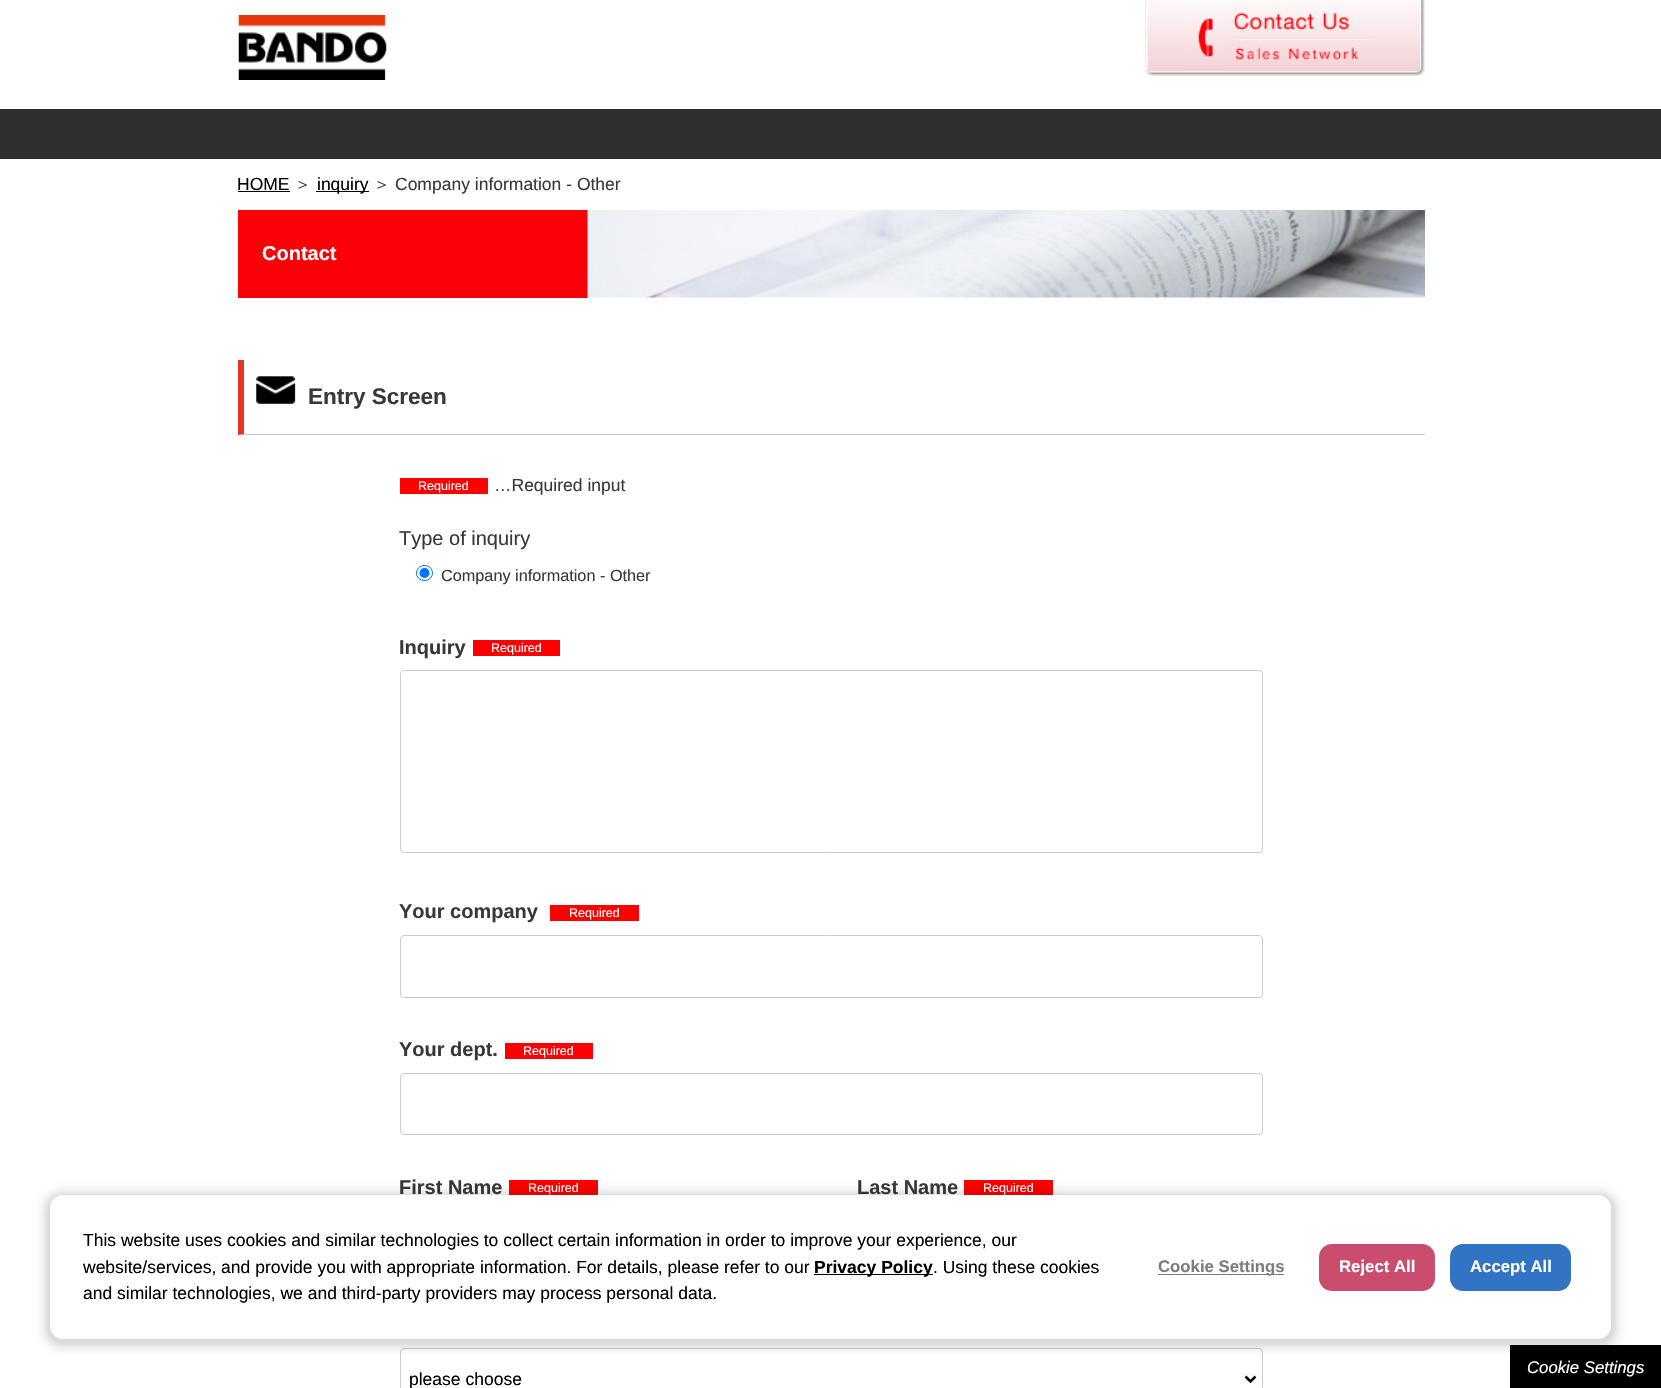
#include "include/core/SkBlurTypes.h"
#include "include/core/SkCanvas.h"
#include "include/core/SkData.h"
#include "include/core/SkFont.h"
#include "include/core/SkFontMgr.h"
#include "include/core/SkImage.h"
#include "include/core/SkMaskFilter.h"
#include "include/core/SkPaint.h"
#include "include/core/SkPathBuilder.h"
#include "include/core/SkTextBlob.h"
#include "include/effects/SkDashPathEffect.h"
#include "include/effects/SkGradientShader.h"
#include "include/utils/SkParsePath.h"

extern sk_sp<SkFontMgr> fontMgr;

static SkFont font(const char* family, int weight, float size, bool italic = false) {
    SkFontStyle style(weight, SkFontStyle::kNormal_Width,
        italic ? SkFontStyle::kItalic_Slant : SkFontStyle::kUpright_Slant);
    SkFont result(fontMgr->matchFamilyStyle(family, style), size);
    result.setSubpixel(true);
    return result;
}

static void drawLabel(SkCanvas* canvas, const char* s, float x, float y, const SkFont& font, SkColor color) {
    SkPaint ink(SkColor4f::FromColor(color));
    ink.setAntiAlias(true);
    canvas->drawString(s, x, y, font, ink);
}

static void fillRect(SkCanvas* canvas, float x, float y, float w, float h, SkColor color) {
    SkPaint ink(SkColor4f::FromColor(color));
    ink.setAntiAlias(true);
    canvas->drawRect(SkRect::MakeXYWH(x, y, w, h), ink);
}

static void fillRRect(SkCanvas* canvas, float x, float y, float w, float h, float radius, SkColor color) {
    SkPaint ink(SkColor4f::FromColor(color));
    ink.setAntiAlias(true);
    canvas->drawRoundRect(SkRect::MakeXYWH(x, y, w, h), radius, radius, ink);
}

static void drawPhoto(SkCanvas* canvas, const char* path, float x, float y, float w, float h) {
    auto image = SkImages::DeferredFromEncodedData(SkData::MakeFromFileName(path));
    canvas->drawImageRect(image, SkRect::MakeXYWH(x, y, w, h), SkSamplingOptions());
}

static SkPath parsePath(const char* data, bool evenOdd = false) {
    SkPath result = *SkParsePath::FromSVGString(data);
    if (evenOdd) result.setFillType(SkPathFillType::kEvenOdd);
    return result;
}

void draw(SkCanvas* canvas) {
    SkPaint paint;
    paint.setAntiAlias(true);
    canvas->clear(0xFFFFFFFF);
    fillRect(canvas, 0, 109, 1661, 50, 0xFF2F2F2F);
    drawPhoto(canvas, "assets/img1.png", 238, 15, 149, 65);
    drawPhoto(canvas, "assets/img2.png", 1145, 0, 280, 77);
    SkFont font1 = font("Liberation Sans", 400, 17.5f);
    drawLabel(canvas, "HOME", 237, 190, font1, 0xFF000000);
    fillRect(canvas, 238, 191, 52, 1, 0xFF000000);
    SkFont font2 = font("WenQuanYi Zen Hei", 500, 17.5f);
    drawLabel(canvas, "＞", 294, 190, font2, 0xFF383838);
    fillRect(canvas, 316, 191, 53, 1, 0xFF000000);
    drawLabel(canvas, "inquiry", 317, 190, font1, 0xFF000000);
    drawLabel(canvas, "＞", 373, 190, font2, 0xFF383838);
    drawLabel(canvas, "Company information - Other", 395, 190, font1, 0xFF383838);
    fillRect(canvas, 238, 210, 350, 88, 0xFFFC0007);
    SkFont font3 = font("Liberation Sans", 700, 20);
    drawLabel(canvas, "Contact", 262, 260, font3, 0xFFFFFFFF);
    drawPhoto(canvas, "assets/img3.png", 587, 210, 838, 88);
    paint.setColor(0xFFCCCCCC);
    canvas->drawPath(parsePath("M1425 435H238L244 434H1425Z"), paint);
    paint.setColor(0xFFE33624);
    canvas->drawPath(parsePath("M238 435V360H244V434Z"), paint);
    drawPhoto(canvas, "assets/img4.png", 256, 376, 40, 28);
    SkFont font4 = font("Liberation Sans", 700, 22.5f);
    drawLabel(canvas, "Entry Screen", 308, 404, font4, 0xFF383838);
    fillRect(canvas, 400, 478, 88, 16, 0xFFFF0000);
    SkFont font5 = font("Liberation Sans", 400, 12.5f);
    drawLabel(canvas, "Required", 418, 490, font5, 0xFFFFFFFF);
    drawLabel(canvas, "…Required input", 494, 491, font1, 0xFF383838);
    SkFont font6 = font("Liberation Sans", 400, 20);
    drawLabel(canvas, "Type of inquiry", 399, 545, font6, 0xFF383838);
    paint.setStroke(true);
    paint.setStrokeWidth(1);
    paint.setColor(0xFF0075FF);
    canvas->drawRoundRect(SkRect::MakeXYWH(416.5f, 565.5f, 16, 15), 7.5f, 7.5f, paint);
    paint.setStroke(false);
    canvas->drawCircle(424.5f, 573, 5, paint);
    SkFont font7 = font("Liberation Sans", 400, 16.25f);
    drawLabel(canvas, "Company information - Other", 441, 581, font7, 0xFF383838);
    drawLabel(canvas, "Inquiry", 399, 654, font3, 0xFF383838);
    fillRect(canvas, 473, 640, 87, 16, 0xFFFF0000);
    drawLabel(canvas, "Required", 491, 652, font5, 0xFFFFFFFF);
    paint.setStroke(true);
    paint.setColor(0xFFCCCCCC);
    canvas->drawRoundRect(SkRect::MakeXYWH(400.5f, 670.5f, 862, 182), 3.5f, 3.5f, paint);
    drawLabel(canvas, "Your company", 399, 918, font3, 0xFF383838);
    fillRect(canvas, 550, 905, 89, 16, 0xFFFF0000);
    drawLabel(canvas, "Required", 569, 917, font5, 0xFFFFFFFF);
    canvas->drawRoundRect(SkRect::MakeXYWH(400.5f, 935.5f, 862, 62), 3.5f, 3.5f, paint);
    drawLabel(canvas, "Your dept.", 399, 1056, font3, 0xFF383838);
    fillRect(canvas, 505, 1043, 88, 16, 0xFFFF0000);
    drawLabel(canvas, "Required", 523, 1055, font5, 0xFFFFFFFF);
    canvas->drawRoundRect(SkRect::MakeXYWH(400.5f, 1073.5f, 862, 61), 3.5f, 3.5f, paint);
    drawLabel(canvas, "First Name", 399, 1194, font3, 0xFF383838);
    fillRect(canvas, 509, 1180, 89, 15, 0xFFFF0000);
    drawLabel(canvas, "Required", 528, 1192, font5, 0xFFFFFFFF);
    drawLabel(canvas, "Last Name", 857, 1194, font3, 0xFF383838);
    fillRect(canvas, 964, 1180, 89, 15, 0xFFFF0000);
    drawLabel(canvas, "Required", 983, 1192, font5, 0xFFFFFFFF);
    canvas->drawRoundRect(SkRect::MakeXYWH(400.5f, 1348.5f, 862, 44), 3.5f, 3.5f, paint);
    paint.setStrokeWidth(2.5f);
    paint.setColor(0xFF000000);
    canvas->drawPath(parsePath("M1245.5 1376.5L1250.5 1381.5L1255.5 1376.5"), paint);
    drawLabel(canvas, "please choose", 409, 1385, font1, 0xFF000000);
    fillRect(canvas, 1510, 1345, 151, 43, 0xFF000000);
    paint.setStroke(false);
    paint.setColor(0x0D000000);
    paint.setMaskFilter(SkMaskFilter::MakeBlur(kNormal_SkBlurStyle, 2));
    canvas->drawRoundRect(SkRect::MakeXYWH(46, 1194, 1569, 151), 16, 16, paint);
    paint.setMaskFilter(nullptr);
    paint.setColor(0x1A000000);
    paint.setMaskFilter(SkMaskFilter::MakeBlur(kNormal_SkBlurStyle, 4));
    canvas->drawRoundRect(SkRect::MakeXYWH(43, 1190, 1576, 159), 20, 20, paint);
    paint.setMaskFilter(nullptr);
    fillRRect(canvas, 50, 1195, 1561, 144, 13, 0xFFFFFFFF);
    drawLabel(canvas, "This website uses cookies and similar technologies to collect certain information in order to improve your experience, our", 83, 1246, font1, 0xFF000000);
    drawLabel(canvas, "website/services, and provide you with appropriate information. For details, please refer to our", 83, 1273, font1, 0xFF000000);
    fillRect(canvas, 814, 1274, 119, 1, 0xFF000000);
    SkFont font8 = font("Liberation Sans", 700, 17.5f);
    drawLabel(canvas, "Privacy Policy", 814, 1273, font8, 0xFF000000);
    drawLabel(canvas, ". Using these cookies", 933, 1273, font1, 0xFF000000);
    drawLabel(canvas, "and similar technologies, we and third-party providers may process personal data.", 83, 1299, font1, 0xFF000000);
    fillRect(canvas, 1158, 1274, 126, 1, 0xFF7C7C7C);
    SkFont font9 = font("Liberation Sans", 700, 16.75f);
    drawLabel(canvas, "Cookie Settings", 1158, 1272, font9, 0xFF7C7C7C);
    fillRRect(canvas, 1319, 1244, 116, 47, 13, 0xFFCB4D6E);
    drawLabel(canvas, "Reject All", 1339, 1272, font9, 0xFFFFFFFF);
    fillRRect(canvas, 1450, 1244, 121, 47, 13, 0xFF3174C3);
    drawLabel(canvas, "Accept All", 1470, 1272, font9, 0xFFFFFFFF);
    SkFont font10 = font("Liberation Sans", 400, 16.75f, true);
    drawLabel(canvas, "Cookie Settings", 1527, 1373, font10, 0xFFFFFFFF);
}
